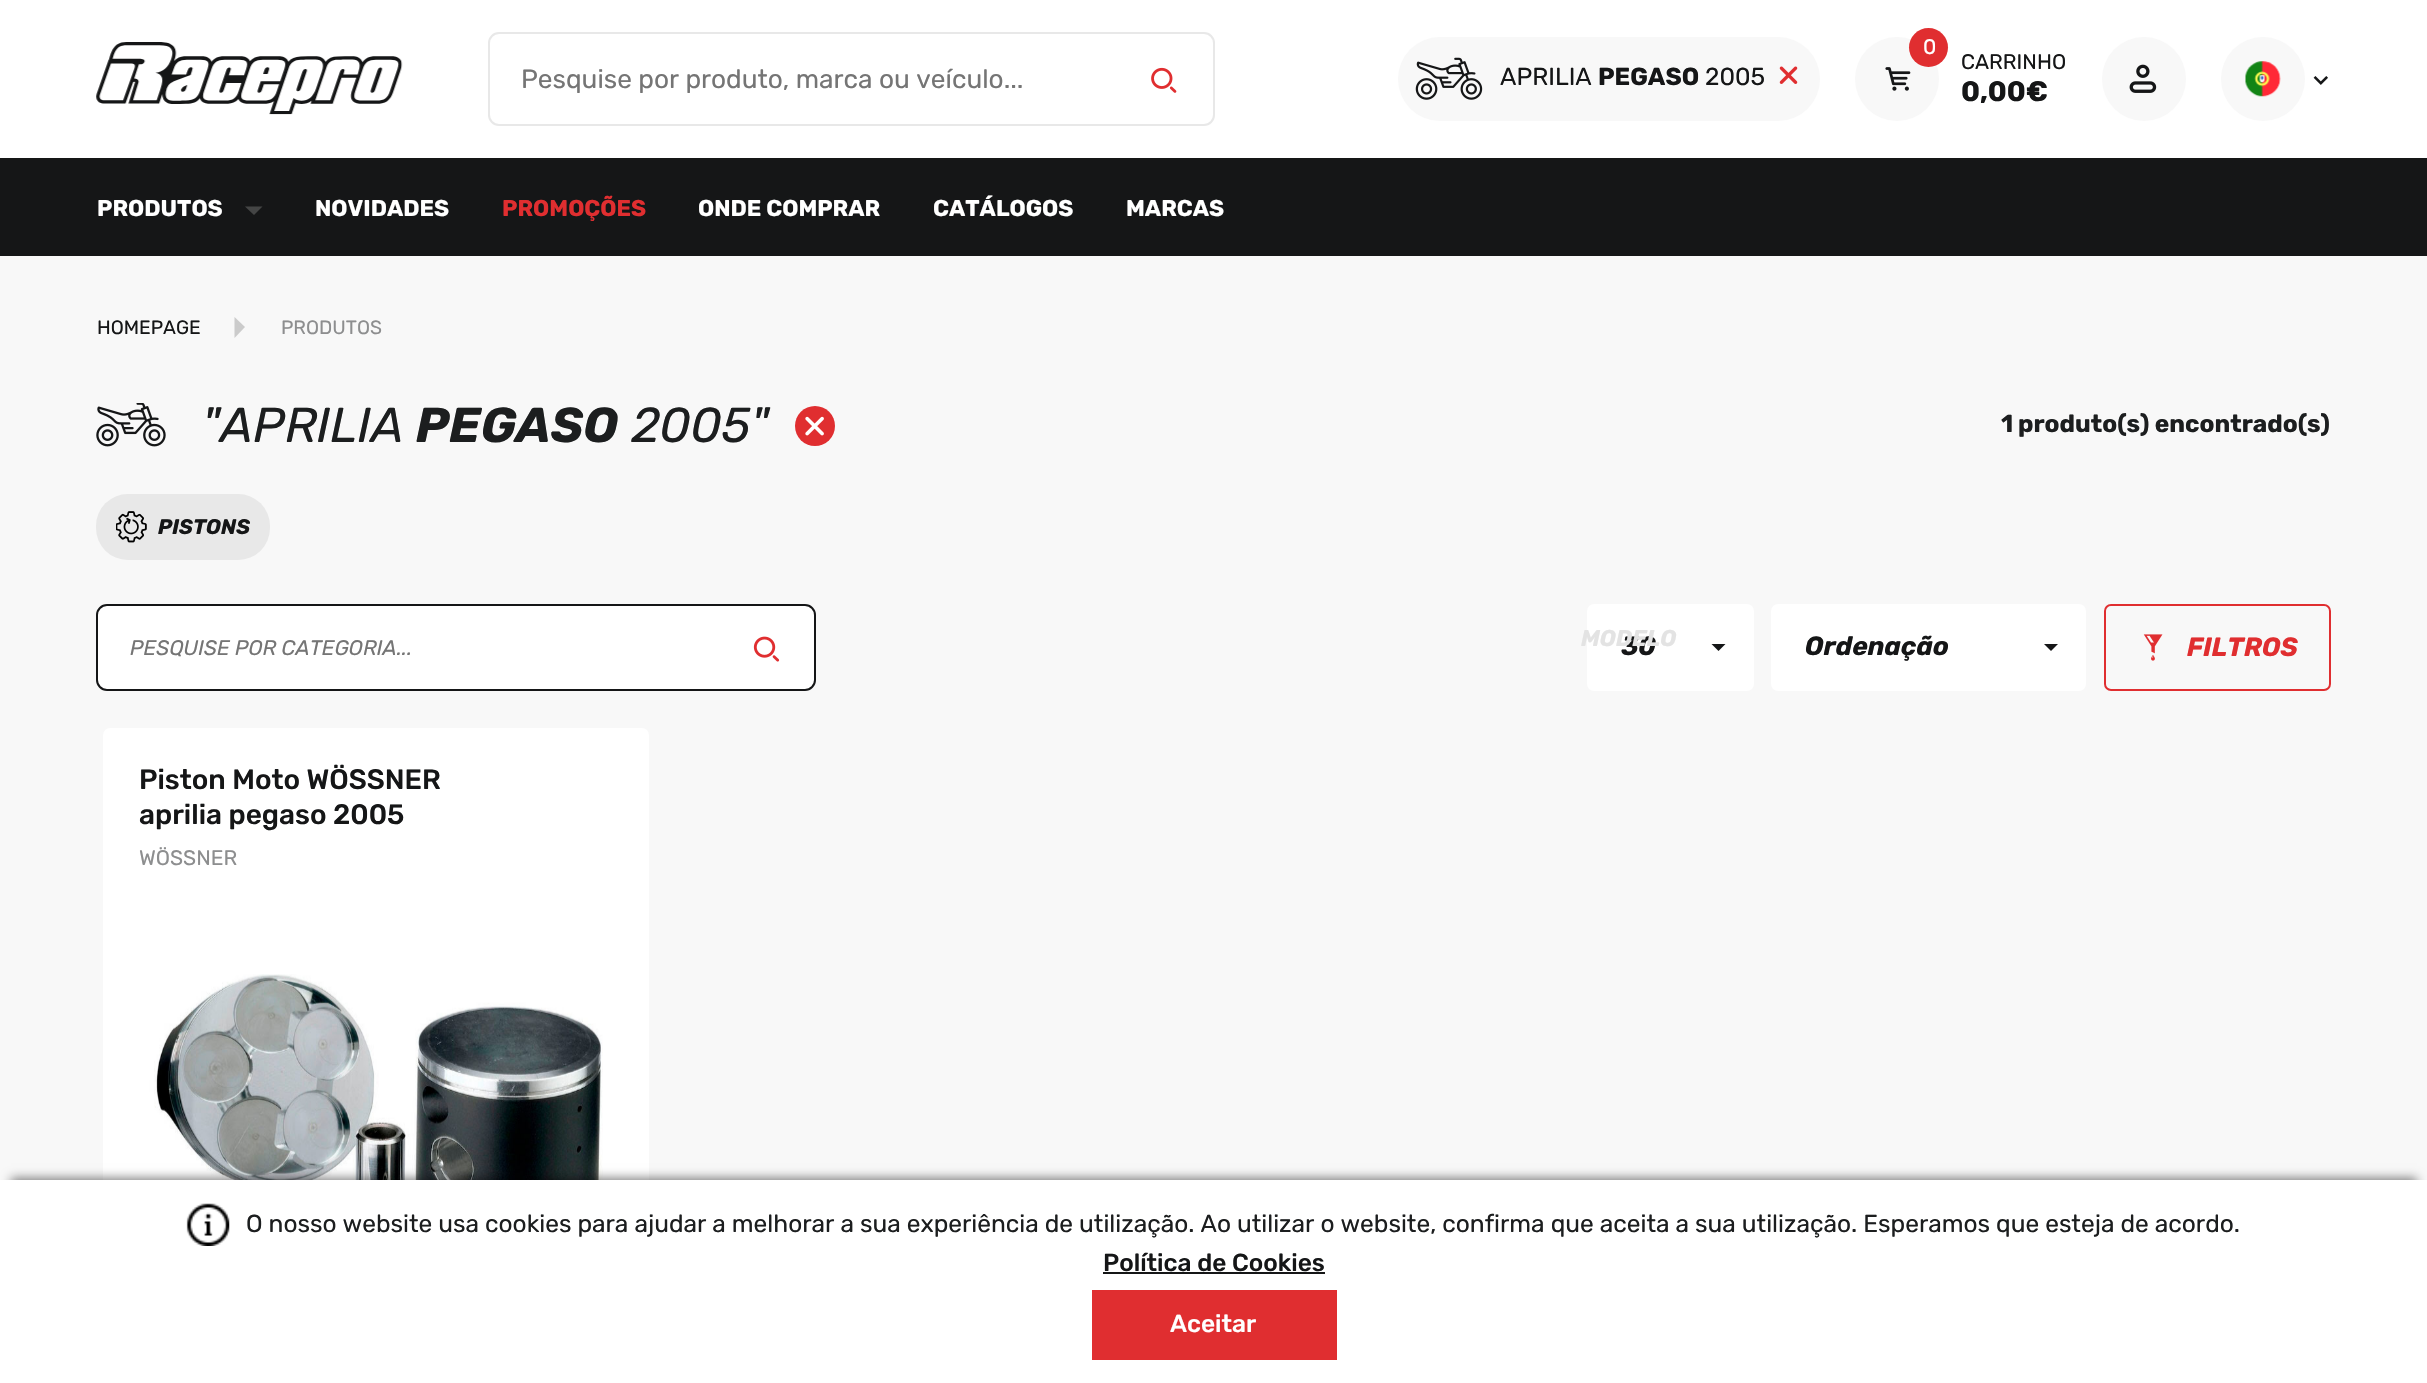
#include "include/core/SkBlurTypes.h"
#include "include/core/SkCanvas.h"
#include "include/core/SkData.h"
#include "include/core/SkFont.h"
#include "include/core/SkFontMgr.h"
#include "include/core/SkImage.h"
#include "include/core/SkMaskFilter.h"
#include "include/core/SkPaint.h"
#include "include/core/SkPathBuilder.h"
#include "include/core/SkTextBlob.h"
#include "include/effects/SkDashPathEffect.h"
#include "include/effects/SkGradientShader.h"
#include "include/utils/SkParsePath.h"

extern sk_sp<SkFontMgr> fontMgr;

static SkFont font(const char* family, int weight, float size, bool italic = false) {
    SkFontStyle style(weight, SkFontStyle::kNormal_Width,
        italic ? SkFontStyle::kItalic_Slant : SkFontStyle::kUpright_Slant);
    SkFont result(fontMgr->matchFamilyStyle(family, style), size);
    result.setSubpixel(true);
    return result;
}

static void drawLabel(SkCanvas* canvas, const char* s, float x, float y, const SkFont& font, SkColor color) {
    SkPaint ink(SkColor4f::FromColor(color));
    ink.setAntiAlias(true);
    canvas->drawString(s, x, y, font, ink);
}

static void fillRect(SkCanvas* canvas, float x, float y, float w, float h, SkColor color) {
    SkPaint ink(SkColor4f::FromColor(color));
    ink.setAntiAlias(true);
    canvas->drawRect(SkRect::MakeXYWH(x, y, w, h), ink);
}

static void fillRRect(SkCanvas* canvas, float x, float y, float w, float h, float radius, SkColor color) {
    SkPaint ink(SkColor4f::FromColor(color));
    ink.setAntiAlias(true);
    canvas->drawRoundRect(SkRect::MakeXYWH(x, y, w, h), radius, radius, ink);
}

static void drawPhoto(SkCanvas* canvas, const char* path, float x, float y, float w, float h) {
    auto image = SkImages::DeferredFromEncodedData(SkData::MakeFromFileName(path));
    canvas->drawImageRect(image, SkRect::MakeXYWH(x, y, w, h), SkSamplingOptions());
}

static SkPath parsePath(const char* data, bool evenOdd = false) {
    SkPath result = *SkParsePath::FromSVGString(data);
    if (evenOdd) result.setFillType(SkPathFillType::kEvenOdd);
    return result;
}

void draw(SkCanvas* canvas) {
    SkPaint paint;
    paint.setAntiAlias(true);
    canvas->clear(0xFFF8F8F8);
    fillRect(canvas, 0, 0, 2427, 158, 0xFFFFFFFF);
    drawPhoto(canvas, "assets/img1.png", 96, 42, 307, 73);
    paint.setStroke(true);
    paint.setStrokeWidth(2);
    paint.setColor(0xFFE8E8E8);
    canvas->drawRoundRect(SkRect::MakeXYWH(489, 33, 725, 92), 10, 10, paint);
    SkFont font1 = font("Rubik", 400, 26.25f);
    drawLabel(canvas, "Pesquise por produto, marca ou veículo...", 521, 88, font1, 0xFF757575);
    drawPhoto(canvas, "assets/img2.png", 1151, 67, 26, 26);
    fillRRect(canvas, 1398, 37, 422, 84, 42, 0xFFF8F8F8);
    drawPhoto(canvas, "assets/img3.png", 1415, 57, 68, 43);
    SkFont font2 = font("Rubik", 400, 24.5f);
    drawLabel(canvas, "APRILIA", 1500, 85, font2, 0xFF151617);
    SkFont font3 = font("Rubik", 700, 24.5f);
    drawLabel(canvas, "PEGASO", 1598, 85, font3, 0xFF151617);
    drawLabel(canvas, "2005", 1705, 85, font2, 0xFF151617);
    drawPhoto(canvas, "assets/img4.png", 1779, 66, 19, 18);
    fillRRect(canvas, 1587, 604, 167, 87, 7, 0xFFFFFFFF);
    SkFont font4 = font("Rubik", 700, 26.25f, true);
    drawLabel(canvas, "30", 1621, 655, font4, 0xFF151617);
    SkFont font5 = font("Rubik", 700, 22.75f, true);
    drawLabel(canvas, "MODELO", 1581, 646, font5, 0xFFE3E3E3);
    paint.setStroke(false);
    paint.setColor(0xFFF8F8F8);
    canvas->drawCircle(1897, 79, 42, paint);
    drawPhoto(canvas, "assets/img5.png", 1885, 67, 26, 24);
    paint.setColor(0xFFE02E30);
    canvas->drawCircle(1928.5f, 47.5f, 19.5f, paint);
    SkFont font6 = font("Rubik", 400, 21);
    drawLabel(canvas, "0", 1923, 54, font6, 0xFFFFFFFF);
    drawLabel(canvas, "CARRINHO", 1961, 69, font6, 0xFF151617);
    SkFont font7 = font("Rubik", 700, 28);
    drawLabel(canvas, "0,00€", 1961, 101, font7, 0xFF151617);
    paint.setColor(0xFFF8F8F8);
    canvas->drawCircle(2144, 79, 42, paint);
    drawPhoto(canvas, "assets/img6.png", 2129, 64, 28, 29);
    canvas->drawCircle(2263, 79, 42, paint);
    drawPhoto(canvas, "assets/img7.png", 2245, 61, 36, 36);
    drawPhoto(canvas, "assets/img8.png", 2313, 76, 15, 9);
    fillRect(canvas, 0, 158, 2427, 98, 0xFF151617);
    SkFont font8 = font("Rubik", 700, 22.75f);
    drawLabel(canvas, "PRODUTOS", 97, 216, font8, 0xFFFFFFFF);
    paint.setColor(0xFF444545);
    canvas->drawPath(parsePath("M245 206.5H262.5L254 215Z"), paint);
    drawLabel(canvas, "NOVIDADES", 315, 216, font8, 0xFFFFFFFF);
    drawLabel(canvas, "PROMOÇÕES", 502, 216, font8, 0xFFE02E30);
    drawLabel(canvas, "ONDE COMPRAR", 698, 216, font8, 0xFFFFFFFF);
    drawLabel(canvas, "CATÁLOGOS", 933, 216, font8, 0xFFFFFFFF);
    drawLabel(canvas, "MARCAS", 1126, 216, font8, 0xFFFFFFFF);
    SkFont font9 = font("Rubik", 400, 19.25f);
    drawLabel(canvas, "HOMEPAGE", 97, 334, font9, 0xFF151617);
    paint.setColor(0xFFCBCBCB);
    canvas->drawPath(parsePath("M234.5 338V317L245 327Z"), paint);
    drawLabel(canvas, "PRODUTOS", 281, 334, font9, 0xFF8D8E8F);
    drawPhoto(canvas, "assets/img9.png", 96, 403, 70, 44);
    SkFont font10 = font("Rubik", 400, 49, true);
    drawLabel(canvas, "\"APRILIA", 202, 442, font10, 0xFF1C1E1F);
    SkFont font11 = font("Rubik", 700, 49, true);
    drawLabel(canvas, "PEGASO", 416, 442, font11, 0xFF1C1E1F);
    drawLabel(canvas, "2005\"", 631, 442, font10, 0xFF1C1E1F);
    paint.setColor(0xFFE02E30);
    canvas->drawCircle(815, 426, 20, paint);
    drawPhoto(canvas, "assets/img10.png", 805, 416, 19, 20);
    drawLabel(canvas, "1", 2001, 432, font3, 0xFF1C1E1F);
    drawLabel(canvas, "produto(s) encontrado(s)", 2018, 432, font3, 0xFF1C1E1F);
    fillRRect(canvas, 96, 494, 174, 66, 32, 0xFFE8E8E8);
    drawPhoto(canvas, "assets/img11.png", 116, 511, 31, 32);
    SkFont font12 = font("Rubik", 700, 21, true);
    drawLabel(canvas, "PISTONS", 158, 534, font12, 0xFF151617);
    paint.setColor(0xFFFFFFFF);
    canvas->drawRoundRect(SkRect::MakeXYWH(97, 605, 718, 85), 10, 10, paint);
    paint.setStroke(true);
    paint.setColor(0xFF151617);
    canvas->drawRoundRect(SkRect::MakeXYWH(97, 605, 718, 85), 10, 10, paint);
    SkFont font13 = font("Rubik", 400, 21, true);
    drawLabel(canvas, "PESQUISE POR CATEGORIA...", 130, 655, font13, 0xFF757575);
    drawPhoto(canvas, "assets/img12.png", 753, 636, 27, 26);
    paint.setStroke(false);
    canvas->drawPath(parsePath("M1711.5 644H1725.5L1718.5 651Z"), paint);
    fillRRect(canvas, 1771, 604, 315, 87, 7, 0xFFFFFFFF);
    drawLabel(canvas, "Ordenação", 1805, 655, font4, 0xFF151617);
    canvas->drawPath(parsePath("M2044 644H2058L2051 651Z"), paint);
    paint.setStroke(true);
    paint.setColor(0xFFE02E30);
    canvas->drawRoundRect(SkRect::MakeXYWH(2105, 605, 225, 85), 6, 6, paint);
    drawPhoto(canvas, "assets/img13.png", 2143, 634, 20, 27);
    drawLabel(canvas, "FILTROS", 2187, 656, font4, 0xFFE02E30);
    fillRRect(canvas, 103, 728, 546, 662, 7, 0xFFFFFFFF);
    SkFont font14 = font("Rubik", 500, 28);
    drawLabel(canvas, "Piston Moto WÖSSNER", 139, 789, font14, 0xFF151617);
    drawLabel(canvas, "aprilia pegaso 2005", 139, 824, font14, 0xFF151617);
    drawLabel(canvas, "WÖSSNER", 139, 865, font6, 0xFF8D8E8F);
    drawPhoto(canvas, "assets/img14.png", 149, 974, 454, 206);
    paint.setStroke(false);
    paint.setColor(0x80000000);
    paint.setMaskFilter(SkMaskFilter::MakeBlur(kNormal_SkBlurStyle, 5));
    canvas->drawRect(SkRect::MakeXYWH(11, 1178, 2406, 184), paint);
    paint.setMaskFilter(nullptr);
    fillRect(canvas, 0, 1180, 2427, 203, 0xFFFFFFFF);
    drawPhoto(canvas, "assets/img15.png", 186, 1203, 44, 43);
    drawLabel(canvas, "O nosso website usa cookies para ajudar a melhorar a sua experiência de utilização. Ao utilizar o website, confirma que aceita a sua utilização. Esperamos que esteja de acordo.", 246, 1232, font2, 0xFF1C1E1F);
    SkFont font15 = font("Rubik", 500, 24.5f);
    drawLabel(canvas, "Política de Cookies", 1103, 1271, font15, 0xFF151617);
    fillRect(canvas, 1103, 1272, 222, 2, 0xFF151617);
    fillRect(canvas, 1092, 1290, 245, 70, 0xFFE02E30);
    drawLabel(canvas, "Aceitar", 1170, 1332, font15, 0xFFFFFFFF);
}
